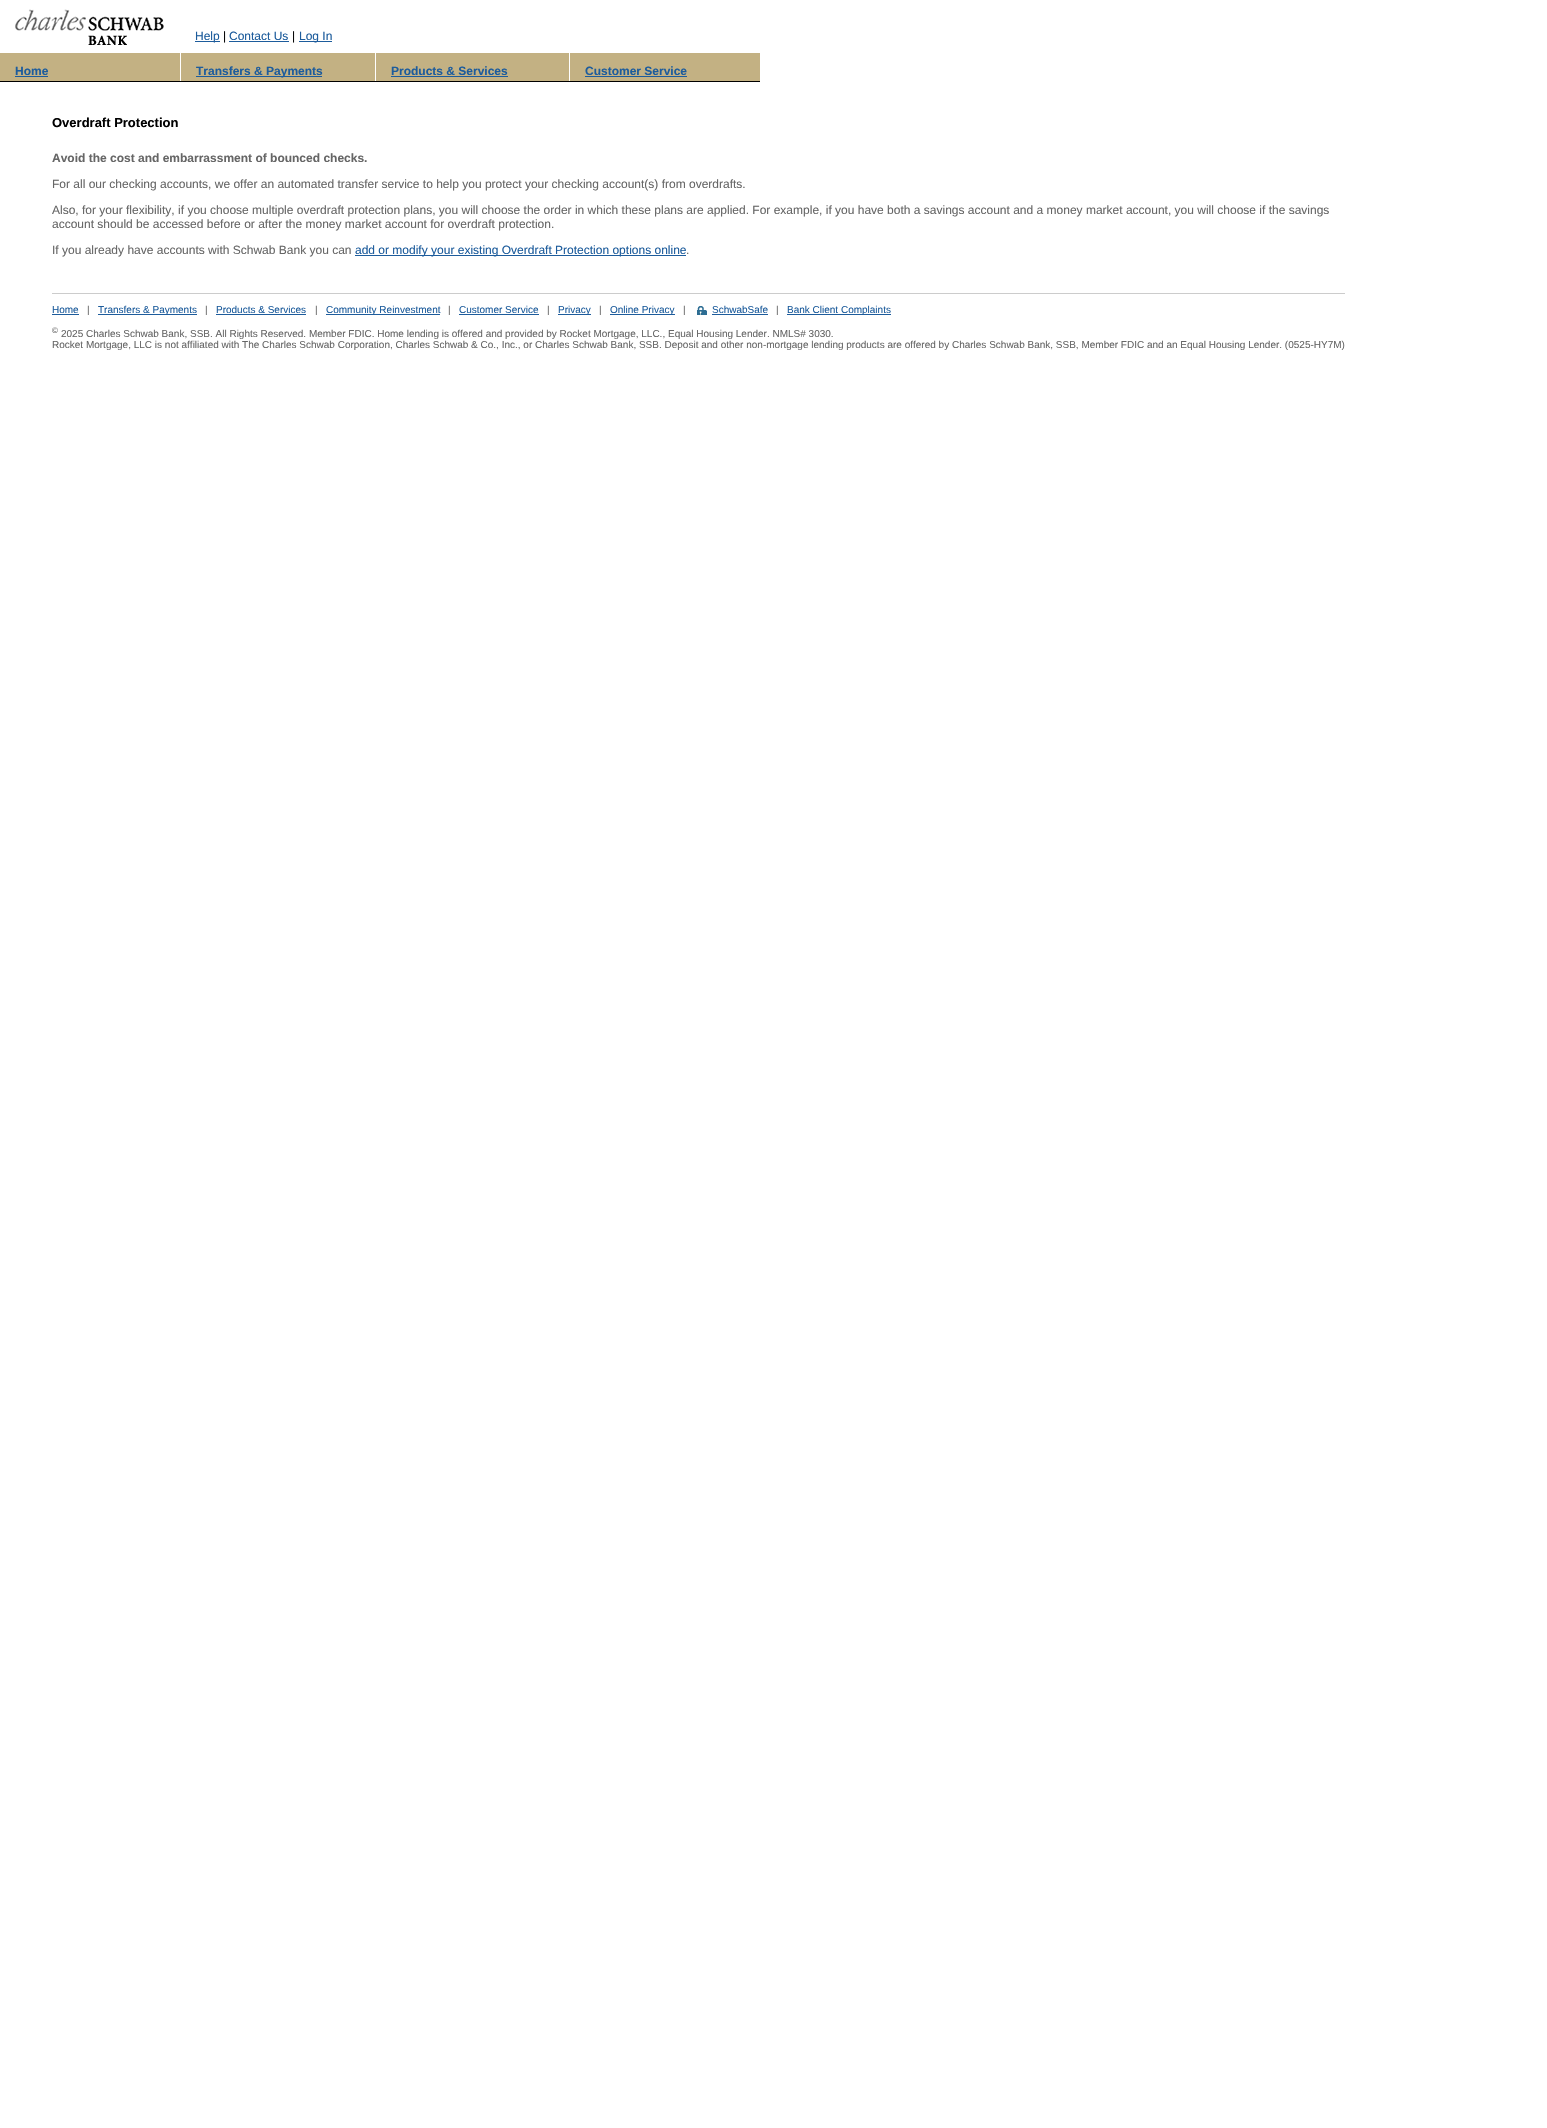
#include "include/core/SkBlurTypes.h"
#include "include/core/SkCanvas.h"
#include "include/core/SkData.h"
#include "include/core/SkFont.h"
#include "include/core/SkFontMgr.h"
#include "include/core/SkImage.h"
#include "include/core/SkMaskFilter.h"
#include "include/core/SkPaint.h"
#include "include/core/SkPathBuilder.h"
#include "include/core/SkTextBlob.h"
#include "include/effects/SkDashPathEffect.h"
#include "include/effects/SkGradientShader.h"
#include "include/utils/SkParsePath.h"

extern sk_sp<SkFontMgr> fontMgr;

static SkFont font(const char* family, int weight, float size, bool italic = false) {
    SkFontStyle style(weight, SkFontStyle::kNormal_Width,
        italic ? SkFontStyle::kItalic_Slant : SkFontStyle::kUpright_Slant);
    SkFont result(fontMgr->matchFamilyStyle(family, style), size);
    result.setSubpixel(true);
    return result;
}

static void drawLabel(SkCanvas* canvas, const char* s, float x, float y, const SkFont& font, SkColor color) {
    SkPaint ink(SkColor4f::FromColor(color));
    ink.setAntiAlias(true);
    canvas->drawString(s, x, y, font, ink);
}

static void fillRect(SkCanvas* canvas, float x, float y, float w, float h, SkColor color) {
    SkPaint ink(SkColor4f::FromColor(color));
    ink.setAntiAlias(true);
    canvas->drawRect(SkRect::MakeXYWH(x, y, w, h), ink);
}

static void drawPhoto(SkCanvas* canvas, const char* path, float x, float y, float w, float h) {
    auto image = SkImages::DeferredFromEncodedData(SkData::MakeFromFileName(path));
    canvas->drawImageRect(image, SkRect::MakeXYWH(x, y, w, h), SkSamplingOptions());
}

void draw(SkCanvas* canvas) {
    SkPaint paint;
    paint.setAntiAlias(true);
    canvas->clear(0xFFFFFFFF);
    drawPhoto(canvas, "assets/img1.png", 15, 9, 149, 36);
    fillRect(canvas, 195, 41, 25, 1, 0xFF1D5C9C);
    SkFont font1 = font("Liberation Sans", 400, 12);
    drawLabel(canvas, "Help", 195, 40, font1, 0xFF1D5C9C);
    drawLabel(canvas, "|", 223, 40, font1, 0xFF000000);
    drawLabel(canvas, "Contact Us", 229, 40, font1, 0xFF1D5C9C);
    fillRect(canvas, 229, 41, 60, 1, 0xFF1D5C9C);
    drawLabel(canvas, "|", 292, 40, font1, 0xFF000000);
    fillRect(canvas, 299, 41, 33, 1, 0xFF1D5C9C);
    drawLabel(canvas, "Log In", 299, 40, font1, 0xFF1D5C9C);
    fillRect(canvas, 0, 53, 180, 28, 0xFFC3B183);
    fillRect(canvas, 0, 81, 760, 1, 0xFF000000);
    SkFont font2 = font("Liberation Sans", 700, 12);
    drawLabel(canvas, "Home", 15, 75, font2, 0xFF1D5C9C);
    fillRect(canvas, 15, 76, 33, 1, 0xFF1D5C9C);
    fillRect(canvas, 181, 53, 194, 28, 0xFFC3B183);
    fillRect(canvas, 196, 76, 126, 1, 0xFF1D5C9C);
    drawLabel(canvas, "Transfers & Payments", 196, 75, font2, 0xFF1D5C9C);
    fillRect(canvas, 376, 53, 193, 28, 0xFFC3B183);
    drawLabel(canvas, "Products & Services", 391, 75, font2, 0xFF1D5C9C);
    fillRect(canvas, 391, 76, 117, 1, 0xFF1D5C9C);
    fillRect(canvas, 570, 53, 190, 28, 0xFFC3B183);
    drawLabel(canvas, "Customer Service", 585, 75, font2, 0xFF1D5C9C);
    fillRect(canvas, 585, 76, 102, 1, 0xFF1D5C9C);
    SkFont font3 = font("Liberation Sans", 700, 13);
    drawLabel(canvas, "Overdraft Protection", 52, 127, font3, 0xFF000000);
    drawLabel(canvas, "Avoid the cost and embarrassment of bounced checks.", 52, 162, font2, 0xFF666666);
    drawLabel(canvas, "For all our checking accounts, we offer an automated transfer service to help you protect your checking account(s) from overdrafts.", 52, 188, font1, 0xFF666666);
    drawLabel(canvas, "Also, for your flexibility, if you choose multiple overdraft protection plans, you will choose the order in which these plans are applied. For example, if you have both a savings account and a money market account, you will choose if the savings", 52, 214, font1, 0xFF666666);
    drawLabel(canvas, "account should be accessed before or after the money market account for overdraft protection.", 52, 228, font1, 0xFF666666);
    drawLabel(canvas, "If you already have accounts with Schwab Bank you can", 52, 254, font1, 0xFF666666);
    fillRect(canvas, 355, 255, 331, 1, 0xFF1D5C9C);
    drawLabel(canvas, "add or modify your existing Overdraft Protection options online", 355, 254, font1, 0xFF1D5C9C);
    drawLabel(canvas, ".", 686, 254, font1, 0xFF666666);
    fillRect(canvas, 52, 293, 1293, 1, 0xFFCCCCCC);
    SkFont font4 = font("Liberation Sans", 400, 10);
    drawLabel(canvas, "Home", 52, 313, font4, 0xFF1D5C9C);
    fillRect(canvas, 52, 314, 27, 1, 0xFF1D5C9C);
    drawLabel(canvas, "|", 87, 313, font4, 0xFF666666);
    fillRect(canvas, 98, 314, 99, 1, 0xFF1D5C9C);
    drawLabel(canvas, "Transfers & Payments", 98, 313, font4, 0xFF1D5C9C);
    drawLabel(canvas, "|", 205, 313, font4, 0xFF666666);
    drawLabel(canvas, "Products & Services", 216, 313, font4, 0xFF1D5C9C);
    fillRect(canvas, 216, 314, 90, 1, 0xFF1D5C9C);
    drawLabel(canvas, "|", 315, 313, font4, 0xFF666666);
    fillRect(canvas, 326, 314, 114, 1, 0xFF1D5C9C);
    drawLabel(canvas, "Community Reinvestment", 326, 313, font4, 0xFF1D5C9C);
    drawLabel(canvas, "|", 448, 313, font4, 0xFF666666);
    drawLabel(canvas, "Customer Service", 459, 313, font4, 0xFF1D5C9C);
    fillRect(canvas, 459, 314, 80, 1, 0xFF1D5C9C);
    drawLabel(canvas, "|", 547, 313, font4, 0xFF666666);
    fillRect(canvas, 558, 314, 33, 1, 0xFF1D5C9C);
    drawLabel(canvas, "Privacy", 558, 313, font4, 0xFF1D5C9C);
    drawLabel(canvas, "|", 599, 313, font4, 0xFF666666);
    fillRect(canvas, 610, 314, 65, 1, 0xFF1D5C9C);
    drawLabel(canvas, "Online Privacy", 610, 313, font4, 0xFF1D5C9C);
    drawLabel(canvas, "|", 683, 313, font4, 0xFF666666);
    drawPhoto(canvas, "assets/img2.png", 697, 306, 10, 9);
    drawLabel(canvas, "SchwabSafe", 712, 313, font4, 0xFF1D5C9C);
    fillRect(canvas, 712, 314, 56, 1, 0xFF1D5C9C);
    drawLabel(canvas, "|", 776, 313, font4, 0xFF666666);
    fillRect(canvas, 787, 314, 104, 1, 0xFF1D5C9C);
    drawLabel(canvas, "Bank Client Complaints", 787, 313, font4, 0xFF1D5C9C);
    SkFont font5 = font("Liberation Sans", 400, 8);
    drawLabel(canvas, "©", 52, 333, font5, 0xFF666666);
    drawLabel(canvas, "2025 Charles Schwab Bank, SSB. All Rights Reserved. Member FDIC. Home lending is offered and provided by Rocket Mortgage, LLC., Equal Housing Lender. NMLS# 3030.", 61, 337, font4, 0xFF666666);
    drawLabel(canvas, "Rocket Mortgage, LLC is not affiliated with The Charles Schwab Corporation, Charles Schwab & Co., Inc., or Charles Schwab Bank, SSB. Deposit and other non-mortgage lending products are offered by Charles Schwab Bank, SSB, Member FDIC and an Equal Housing Lender. (0525-HY7M)", 52, 348, font4, 0xFF666666);
}
